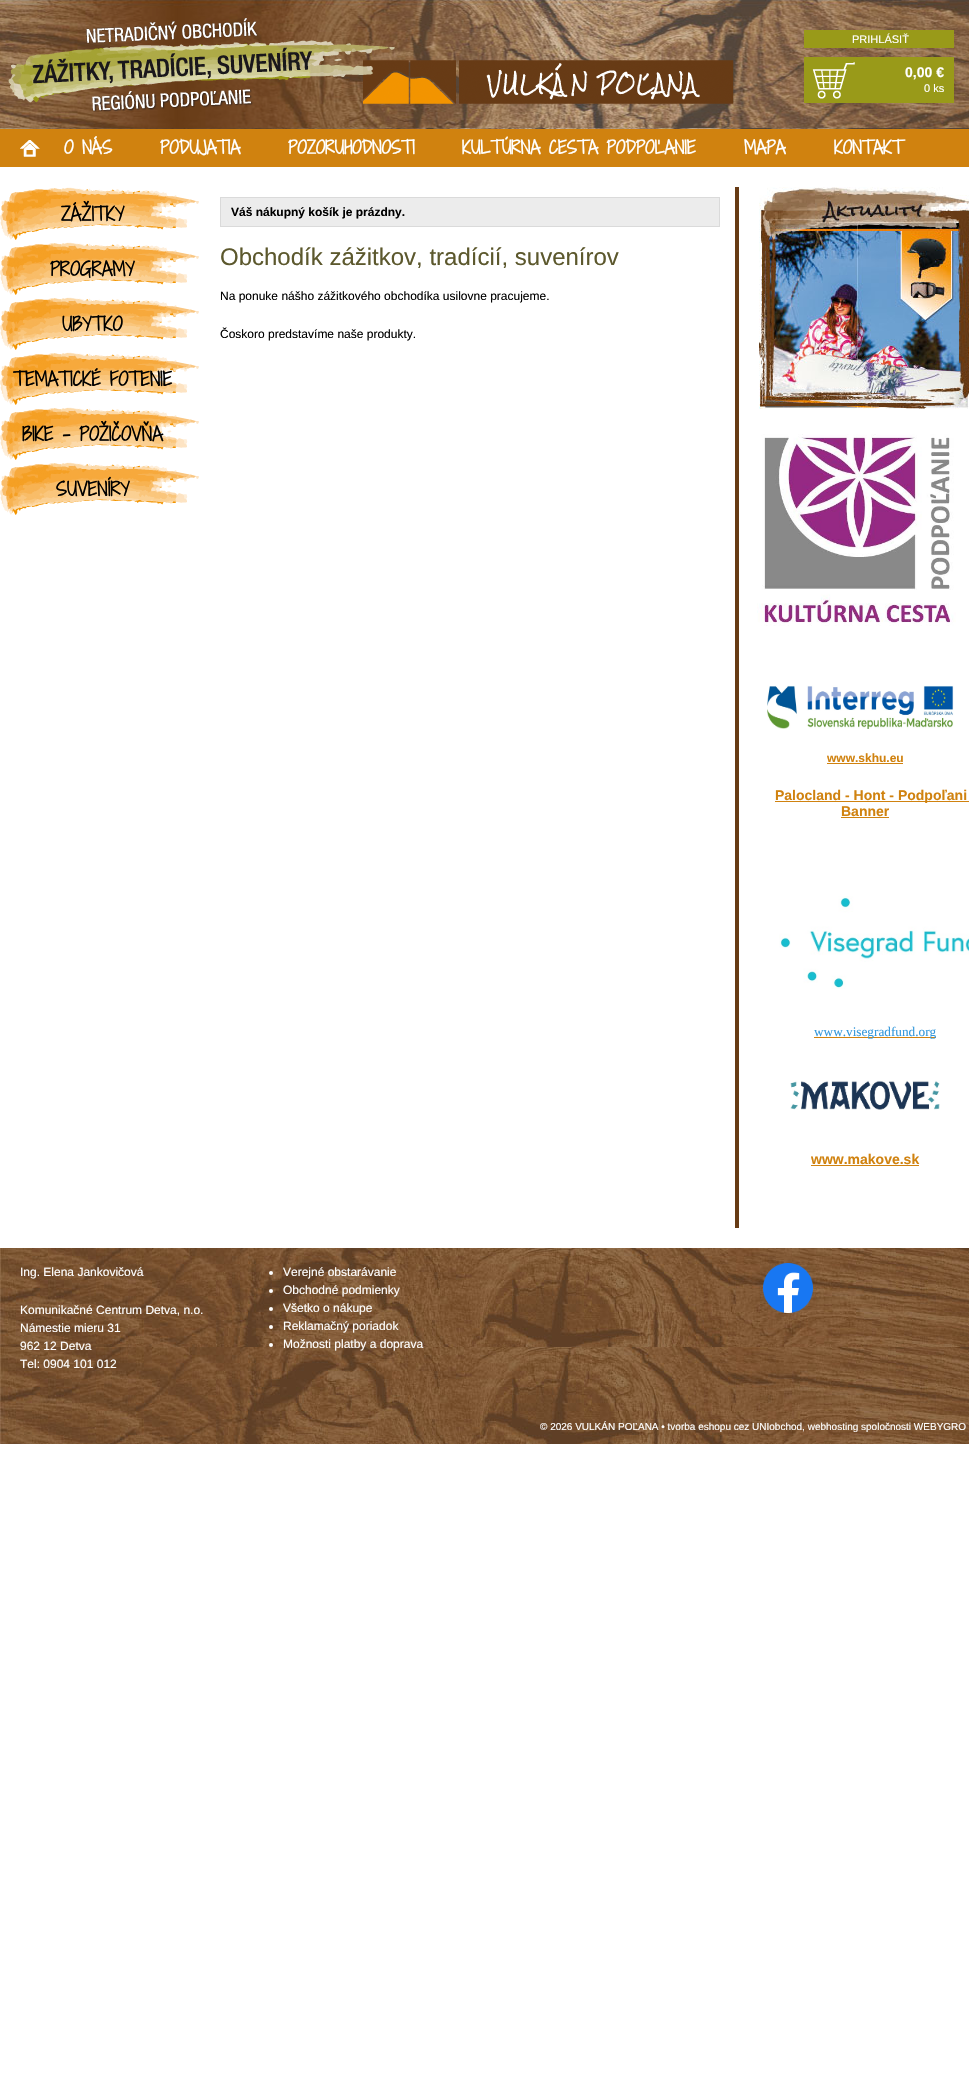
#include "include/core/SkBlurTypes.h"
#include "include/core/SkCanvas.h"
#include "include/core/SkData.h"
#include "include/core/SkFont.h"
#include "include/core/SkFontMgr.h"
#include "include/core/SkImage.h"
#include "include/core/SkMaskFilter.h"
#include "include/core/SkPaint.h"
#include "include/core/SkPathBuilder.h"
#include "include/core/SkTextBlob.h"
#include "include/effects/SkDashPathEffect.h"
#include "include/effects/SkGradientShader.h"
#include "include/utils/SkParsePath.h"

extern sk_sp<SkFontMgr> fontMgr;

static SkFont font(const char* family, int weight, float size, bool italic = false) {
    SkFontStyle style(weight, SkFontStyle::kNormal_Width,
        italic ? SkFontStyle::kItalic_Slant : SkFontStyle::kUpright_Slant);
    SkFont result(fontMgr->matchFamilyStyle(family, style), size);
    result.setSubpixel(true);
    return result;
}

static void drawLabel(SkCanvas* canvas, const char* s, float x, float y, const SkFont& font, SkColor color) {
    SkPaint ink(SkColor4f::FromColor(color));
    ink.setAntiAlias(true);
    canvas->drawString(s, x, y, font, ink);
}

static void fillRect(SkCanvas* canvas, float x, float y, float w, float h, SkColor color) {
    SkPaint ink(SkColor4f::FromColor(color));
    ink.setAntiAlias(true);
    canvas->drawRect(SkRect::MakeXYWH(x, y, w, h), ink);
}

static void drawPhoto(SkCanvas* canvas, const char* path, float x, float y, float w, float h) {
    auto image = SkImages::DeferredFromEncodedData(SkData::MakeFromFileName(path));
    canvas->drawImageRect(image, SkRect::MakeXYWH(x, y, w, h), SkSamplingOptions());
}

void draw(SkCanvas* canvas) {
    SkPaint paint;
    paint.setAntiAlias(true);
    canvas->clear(0xFFFFFFFF);
    drawPhoto(canvas, "assets/img1.png", 0, 0, 969, 129);
    drawPhoto(canvas, "assets/img3.png", 363, 60, 371, 44);
    drawPhoto(canvas, "assets/img2.png", 8, 18, 387, 94);
    fillRect(canvas, 804, 30, 150, 18, 0xFF999A19);
    SkFont font1 = font("Liberation Sans", 400, 11);
    drawLabel(canvas, "PRIHLÁSIŤ", 852, 43, font1, 0xFFFFFFFF);
    fillRect(canvas, 804, 57, 150, 46, 0xFF999A19);
    drawPhoto(canvas, "assets/img4.png", 812, 62, 43, 37);
    SkFont font2 = font("Liberation Sans", 700, 14);
    drawLabel(canvas, "0,00 €", 905, 77, font2, 0xFFFFFFFF);
    drawLabel(canvas, "0 ks", 924, 92, font1, 0xFFFFFFFF);
    fillRect(canvas, 0, 129, 969, 38, 0xFFD0820F);
    drawPhoto(canvas, "assets/img5.png", 20, 140, 20, 17);
    SkFont font3 = font("Shadows Into Light Two", 700, 17);
    drawLabel(canvas, "O NÁS", 64, 154, font3, 0xFFFFFFFF);
    drawLabel(canvas, "PODUJATIA", 160, 154, font3, 0xFFFFFFFF);
    drawLabel(canvas, "POZORUHODNOSTI", 288, 154, font3, 0xFFFFFFFF);
    drawLabel(canvas, "KULTÚRNA CESTA PODPOĽANIE", 462, 154, font3, 0xFFFFFFFF);
    drawLabel(canvas, "MAPA", 744, 154, font3, 0xFFFFFFFF);
    drawLabel(canvas, "KONTAKT", 834, 154, font3, 0xFFFFFFFF);
    fillRect(canvas, 735, 187, 4, 1041, 0xFF673B15);
    drawPhoto(canvas, "assets/img6.png", 0, 187, 199, 53);
    SkFont font4 = font("Shadows Into Light Two", 700, 18);
    drawLabel(canvas, "ZÁŽITKY", 61, 221, font4, 0xFF000000);
    drawPhoto(canvas, "assets/img6.png", 0, 242, 199, 53);
    drawLabel(canvas, "PROGRAMY", 50, 276, font4, 0xFF000000);
    drawPhoto(canvas, "assets/img6.png", 0, 297, 199, 53);
    drawLabel(canvas, "UBYTKO", 62, 331, font4, 0xFF000000);
    drawPhoto(canvas, "assets/img6.png", 0, 352, 199, 53);
    drawLabel(canvas, "TEMATICKÉ FOTENIE", 13, 386, font4, 0xFF000000);
    drawPhoto(canvas, "assets/img6.png", 0, 407, 199, 53);
    drawLabel(canvas, "BIKE - POŽIČOVŇA", 22, 441, font4, 0xFF000000);
    drawPhoto(canvas, "assets/img6.png", 0, 462, 199, 53);
    drawLabel(canvas, "SUVENÍRY", 56, 496, font4, 0xFF000000);
    paint.setColor(0xFFECECEC);
    canvas->drawRect(SkRect::MakeXYWH(220.5f, 197.5f, 499, 29), paint);
    paint.setStroke(true);
    paint.setStrokeWidth(1);
    paint.setColor(0xFFDADADA);
    canvas->drawRect(SkRect::MakeXYWH(220.5f, 197.5f, 499, 29), paint);
    SkFont font5 = font("Liberation Sans", 700, 12);
    drawLabel(canvas, "Váš nákupný košík je prázdny.", 231, 216, font5, 0xFF000000);
    SkFont font6 = font("Liberation Sans", 400, 24);
    drawLabel(canvas, "Obchodík zážitkov, tradícií, suvenírov", 220, 265, font6, 0xFF5C582D);
    SkFont font7 = font("Liberation Sans", 400, 12);
    drawLabel(canvas, "Na ponuke nášho zážitkového obchodíka usilovne pracujeme.", 220, 300, font7, 0xFF000000);
    drawLabel(canvas, "Čoskoro predstavíme naše produkty.", 220, 338, font7, 0xFF000000);
    drawPhoto(canvas, "assets/img7.png", 759, 187, 210, 222);
    drawPhoto(canvas, "assets/img8.png", 757, 434, 199, 192);
    drawPhoto(canvas, "assets/img9.png", 767, 685, 187, 44);
    drawLabel(canvas, "www.skhu.eu", 827, 762, font5, 0xFFD0820F);
    fillRect(canvas, 827, 763, 76, 1, 0xFFD0820F);
    fillRect(canvas, 775, 801, 194, 1, 0xFFD0820F);
    drawLabel(canvas, "Palocland - Hont - Podpoľani", 775, 800, font2, 0xFFD0820F);
    drawLabel(canvas, "Banner", 841, 816, font2, 0xFFD0820F);
    fillRect(canvas, 841, 817, 48, 1, 0xFFD0820F);
    drawPhoto(canvas, "assets/img10.png", 779, 896, 190, 93);
    fillRect(canvas, 814, 1037, 122, 1, 0xFFD0820F);
    SkFont font8 = font("Liberation Serif", 400, 13.25f);
    drawLabel(canvas, "www.visegradfund.org", 814, 1036, font8, 0xFF3498DB);
    drawPhoto(canvas, "assets/img11.png", 790, 1080, 150, 30);
    drawLabel(canvas, "www.makove.sk", 811, 1164, font2, 0xFFD0820F);
    fillRect(canvas, 811, 1165, 108, 1, 0xFFD0820F);
    drawPhoto(canvas, "assets/img12.png", 0, 1248, 969, 196);
    drawLabel(canvas, "Ing. Elena Jankovičová", 20, 1276, font7, 0xFFFFFFFF);
    drawLabel(canvas, "Komunikačné Centrum Detva, n.o.", 20, 1314, font7, 0xFFFFFFFF);
    drawLabel(canvas, "Námestie mieru 31", 20, 1332, font7, 0xFFFFFFFF);
    drawLabel(canvas, "962 12 Detva", 20, 1350, font7, 0xFFFFFFFF);
    drawLabel(canvas, "Tel: 0904 101 012", 20, 1368, font7, 0xFFFFFFFF);
    paint.setStroke(false);
    paint.setColor(0xFFFFFFFF);
    canvas->drawCircle(271, 1273, 2, paint);
    drawLabel(canvas, "Verejné obstarávanie", 283, 1276, font7, 0xFFFFFFFF);
    canvas->drawCircle(271, 1291, 2, paint);
    drawLabel(canvas, "Obchodné podmienky", 283, 1294, font7, 0xFFFFFFFF);
    canvas->drawCircle(271, 1309, 2, paint);
    drawLabel(canvas, "Všetko o nákupe", 283, 1312, font7, 0xFFFFFFFF);
    canvas->drawCircle(271, 1327, 2, paint);
    drawLabel(canvas, "Reklamačný poriadok", 283, 1330, font7, 0xFFFFFFFF);
    canvas->drawCircle(271, 1345, 2, paint);
    drawLabel(canvas, "Možnosti platby a doprava", 283, 1348, font7, 0xFFFFFFFF);
    drawPhoto(canvas, "assets/img13.png", 763, 1263, 50, 50);
    SkFont font9 = font("Liberation Sans", 400, 10);
    drawLabel(canvas, "© 2026 VULKÁN POĽANA • tvorba eshopu cez UNIobchod, webhosting spoločnosti WEBYGRO", 540, 1430, font9, 0xFFFFFFFF);
}
